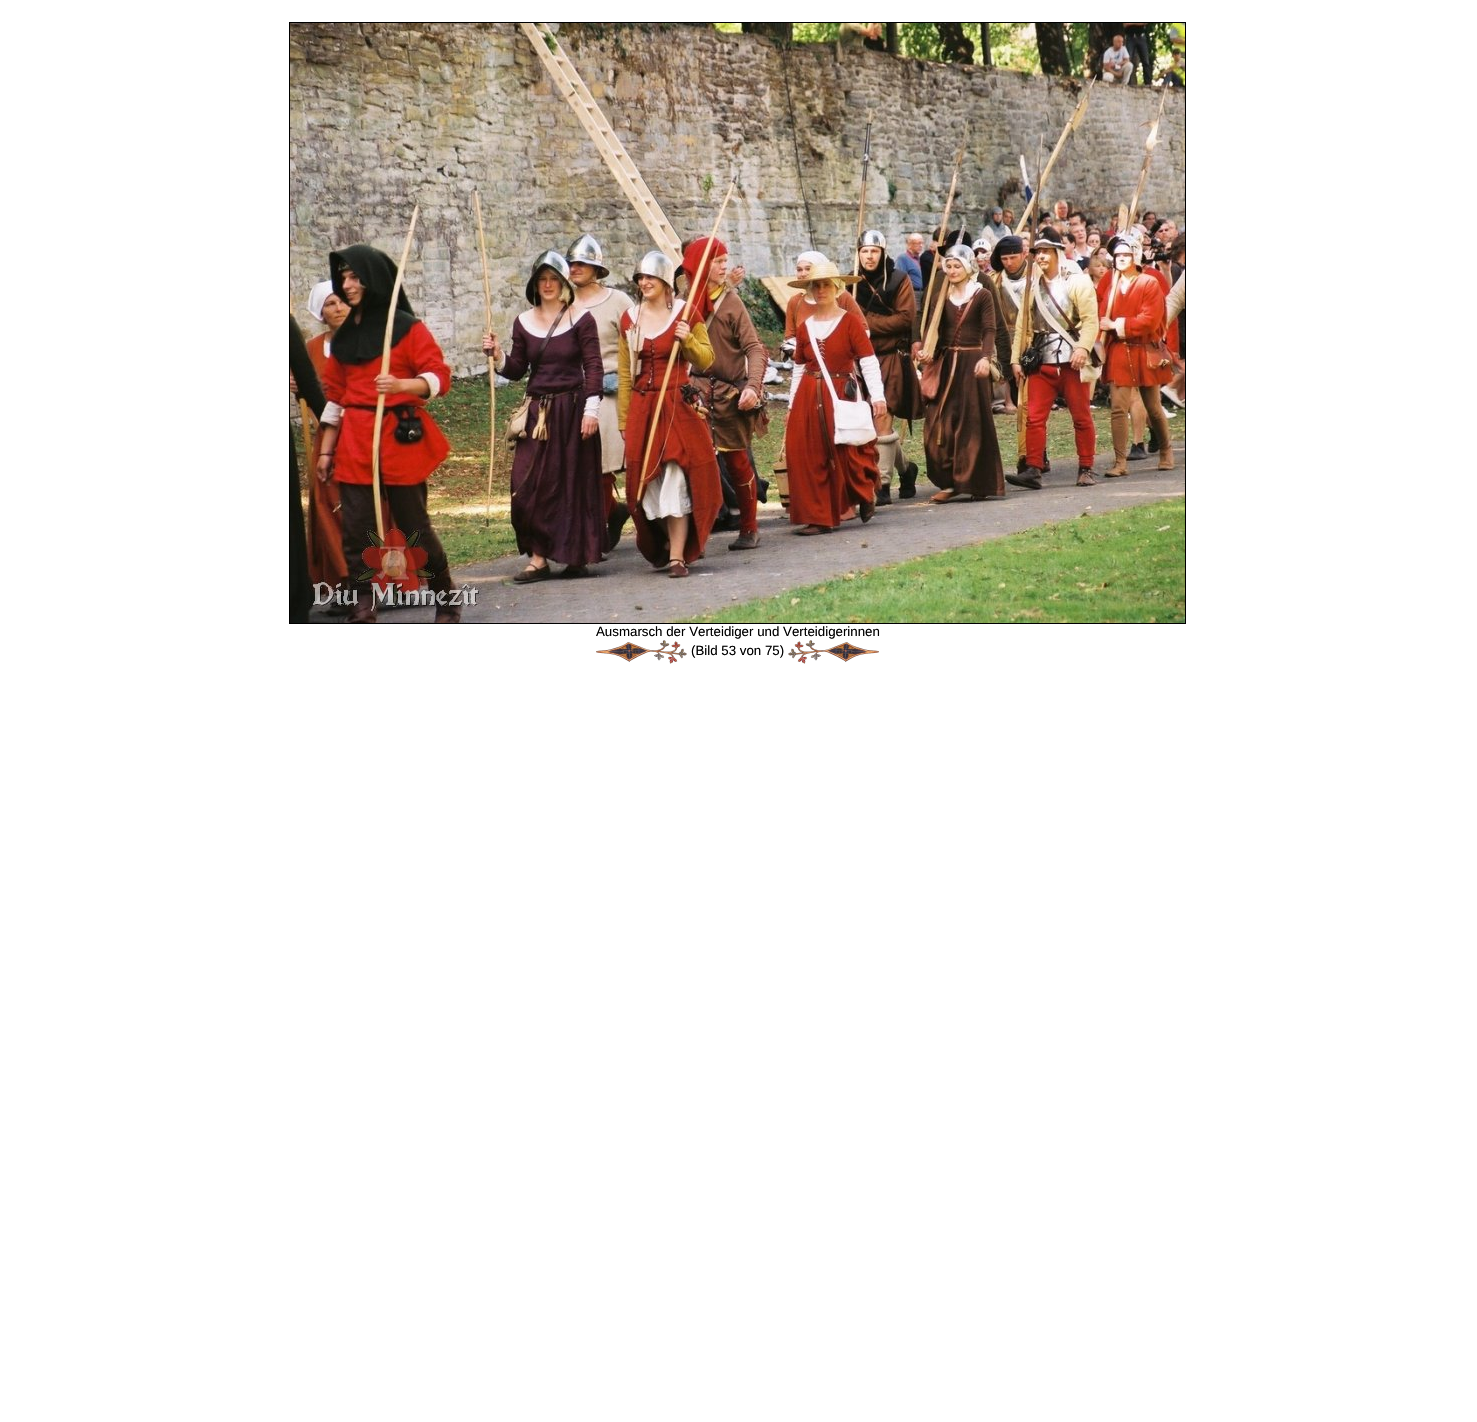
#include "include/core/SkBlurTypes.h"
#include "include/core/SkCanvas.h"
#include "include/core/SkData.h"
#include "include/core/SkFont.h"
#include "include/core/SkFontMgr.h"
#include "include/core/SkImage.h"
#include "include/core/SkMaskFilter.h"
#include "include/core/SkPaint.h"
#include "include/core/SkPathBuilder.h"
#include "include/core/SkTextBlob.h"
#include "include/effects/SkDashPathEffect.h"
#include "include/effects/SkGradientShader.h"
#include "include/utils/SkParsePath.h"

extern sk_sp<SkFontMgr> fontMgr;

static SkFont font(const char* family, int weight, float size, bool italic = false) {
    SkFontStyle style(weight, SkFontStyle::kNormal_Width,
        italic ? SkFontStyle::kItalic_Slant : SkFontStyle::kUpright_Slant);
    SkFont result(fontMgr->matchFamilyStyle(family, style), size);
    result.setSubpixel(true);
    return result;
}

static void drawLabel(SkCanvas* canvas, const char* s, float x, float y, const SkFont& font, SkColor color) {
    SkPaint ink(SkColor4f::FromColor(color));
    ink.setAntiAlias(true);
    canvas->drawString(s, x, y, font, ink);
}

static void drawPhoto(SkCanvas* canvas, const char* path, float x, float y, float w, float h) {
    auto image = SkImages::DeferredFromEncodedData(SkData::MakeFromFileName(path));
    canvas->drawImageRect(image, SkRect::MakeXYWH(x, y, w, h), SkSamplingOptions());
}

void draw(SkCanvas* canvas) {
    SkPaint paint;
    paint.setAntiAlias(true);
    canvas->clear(0xFFFFFFFF);
    paint.setStroke(true);
    paint.setStrokeWidth(1);
    paint.setColor(0xFF000000);
    canvas->drawRect(SkRect::MakeXYWH(289.5f, 22.5f, 896, 601), paint);
    drawPhoto(canvas, "assets/img1.png", 290, 23, 895, 600);
    SkFont font1 = font("Liberation Sans", 400, 13.3f);
    drawLabel(canvas, "Ausmarsch der Verteidiger und Verteidigerinnen", 596, 636, font1, 0xFF000000);
    drawPhoto(canvas, "assets/img2.png", 596, 640, 91, 24);
    drawLabel(canvas, "(Bild 53 von 75)", 691, 655, font1, 0xFF000000);
    drawPhoto(canvas, "assets/img3.png", 788, 640, 91, 24);
}
